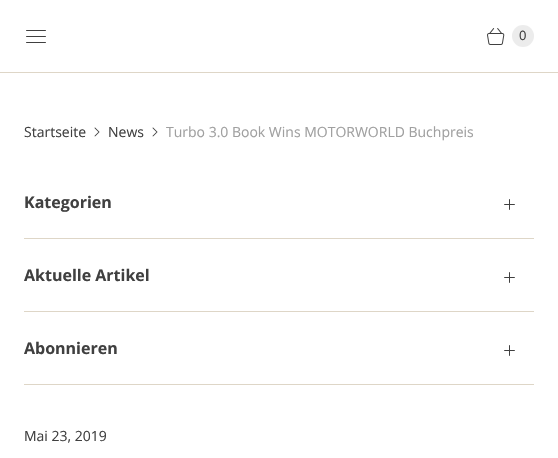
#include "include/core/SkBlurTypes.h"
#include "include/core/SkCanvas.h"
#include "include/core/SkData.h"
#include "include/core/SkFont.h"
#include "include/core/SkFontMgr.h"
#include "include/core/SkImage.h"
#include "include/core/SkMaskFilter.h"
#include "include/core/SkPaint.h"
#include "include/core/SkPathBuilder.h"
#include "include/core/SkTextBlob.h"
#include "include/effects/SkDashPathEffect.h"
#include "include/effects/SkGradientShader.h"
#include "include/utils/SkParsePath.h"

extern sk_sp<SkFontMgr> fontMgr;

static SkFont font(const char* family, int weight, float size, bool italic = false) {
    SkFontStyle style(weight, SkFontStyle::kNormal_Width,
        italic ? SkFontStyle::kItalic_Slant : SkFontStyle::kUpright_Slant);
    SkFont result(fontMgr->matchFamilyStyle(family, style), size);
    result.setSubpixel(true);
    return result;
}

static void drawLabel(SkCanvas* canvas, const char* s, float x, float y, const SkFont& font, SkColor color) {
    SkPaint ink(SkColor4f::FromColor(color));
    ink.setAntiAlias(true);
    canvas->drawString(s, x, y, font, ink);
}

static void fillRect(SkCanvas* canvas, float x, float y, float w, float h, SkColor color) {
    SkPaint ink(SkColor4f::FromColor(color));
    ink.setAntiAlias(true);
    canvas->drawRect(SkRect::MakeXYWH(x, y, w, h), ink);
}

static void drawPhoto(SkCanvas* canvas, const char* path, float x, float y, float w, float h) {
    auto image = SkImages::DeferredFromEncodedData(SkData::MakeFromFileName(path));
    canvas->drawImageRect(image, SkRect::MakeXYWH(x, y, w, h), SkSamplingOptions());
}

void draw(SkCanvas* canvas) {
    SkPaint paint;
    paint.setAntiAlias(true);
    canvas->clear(0xFFFFFFFF);
    fillRect(canvas, 0, 72, 558, 1, 0xFFDED6C7);
    drawPhoto(canvas, "assets/img1.png", 26, 30, 20, 13);
    drawPhoto(canvas, "assets/img2.png", 487, 28, 18, 17);
    paint.setColor(0xFFECECEC);
    canvas->drawCircle(523, 36, 11, paint);
    SkFont font1 = font("Open Sans", 400, 13);
    drawLabel(canvas, "0", 519, 40, font1, 0xFF404040);
    SkFont font2 = font("Open Sans", 400, 14);
    drawLabel(canvas, "Startseite", 24, 137, font2, 0xFF404040);
    drawPhoto(canvas, "assets/img3.png", 94, 127, 6, 10);
    drawLabel(canvas, "News", 108, 137, font2, 0xFF404040);
    drawPhoto(canvas, "assets/img3.png", 152, 127, 6, 10);
    drawLabel(canvas, "Turbo 3.0 Book Wins MOTORWORLD Buchpreis", 166, 137, font2, 0xFFA0A0A0);
    fillRect(canvas, 24, 238, 510, 1, 0xFFDED6C7);
    SkFont font3 = font("Open Sans", 700, 16);
    drawLabel(canvas, "Kategorien", 24, 208, font3, 0xFF404040);
    drawPhoto(canvas, "assets/img4.png", 504, 199, 11, 11);
    fillRect(canvas, 24, 311, 510, 1, 0xFFDED6C7);
    drawLabel(canvas, "Aktuelle Artikel", 24, 281, font3, 0xFF404040);
    drawPhoto(canvas, "assets/img4.png", 504, 272, 11, 11);
    fillRect(canvas, 24, 384, 510, 1, 0xFFDED6C7);
    drawLabel(canvas, "Abonnieren", 24, 354, font3, 0xFF404040);
    drawPhoto(canvas, "assets/img4.png", 504, 345, 11, 11);
    drawLabel(canvas, "Mai 23, 2019", 24, 441, font2, 0xFF404040);
}
